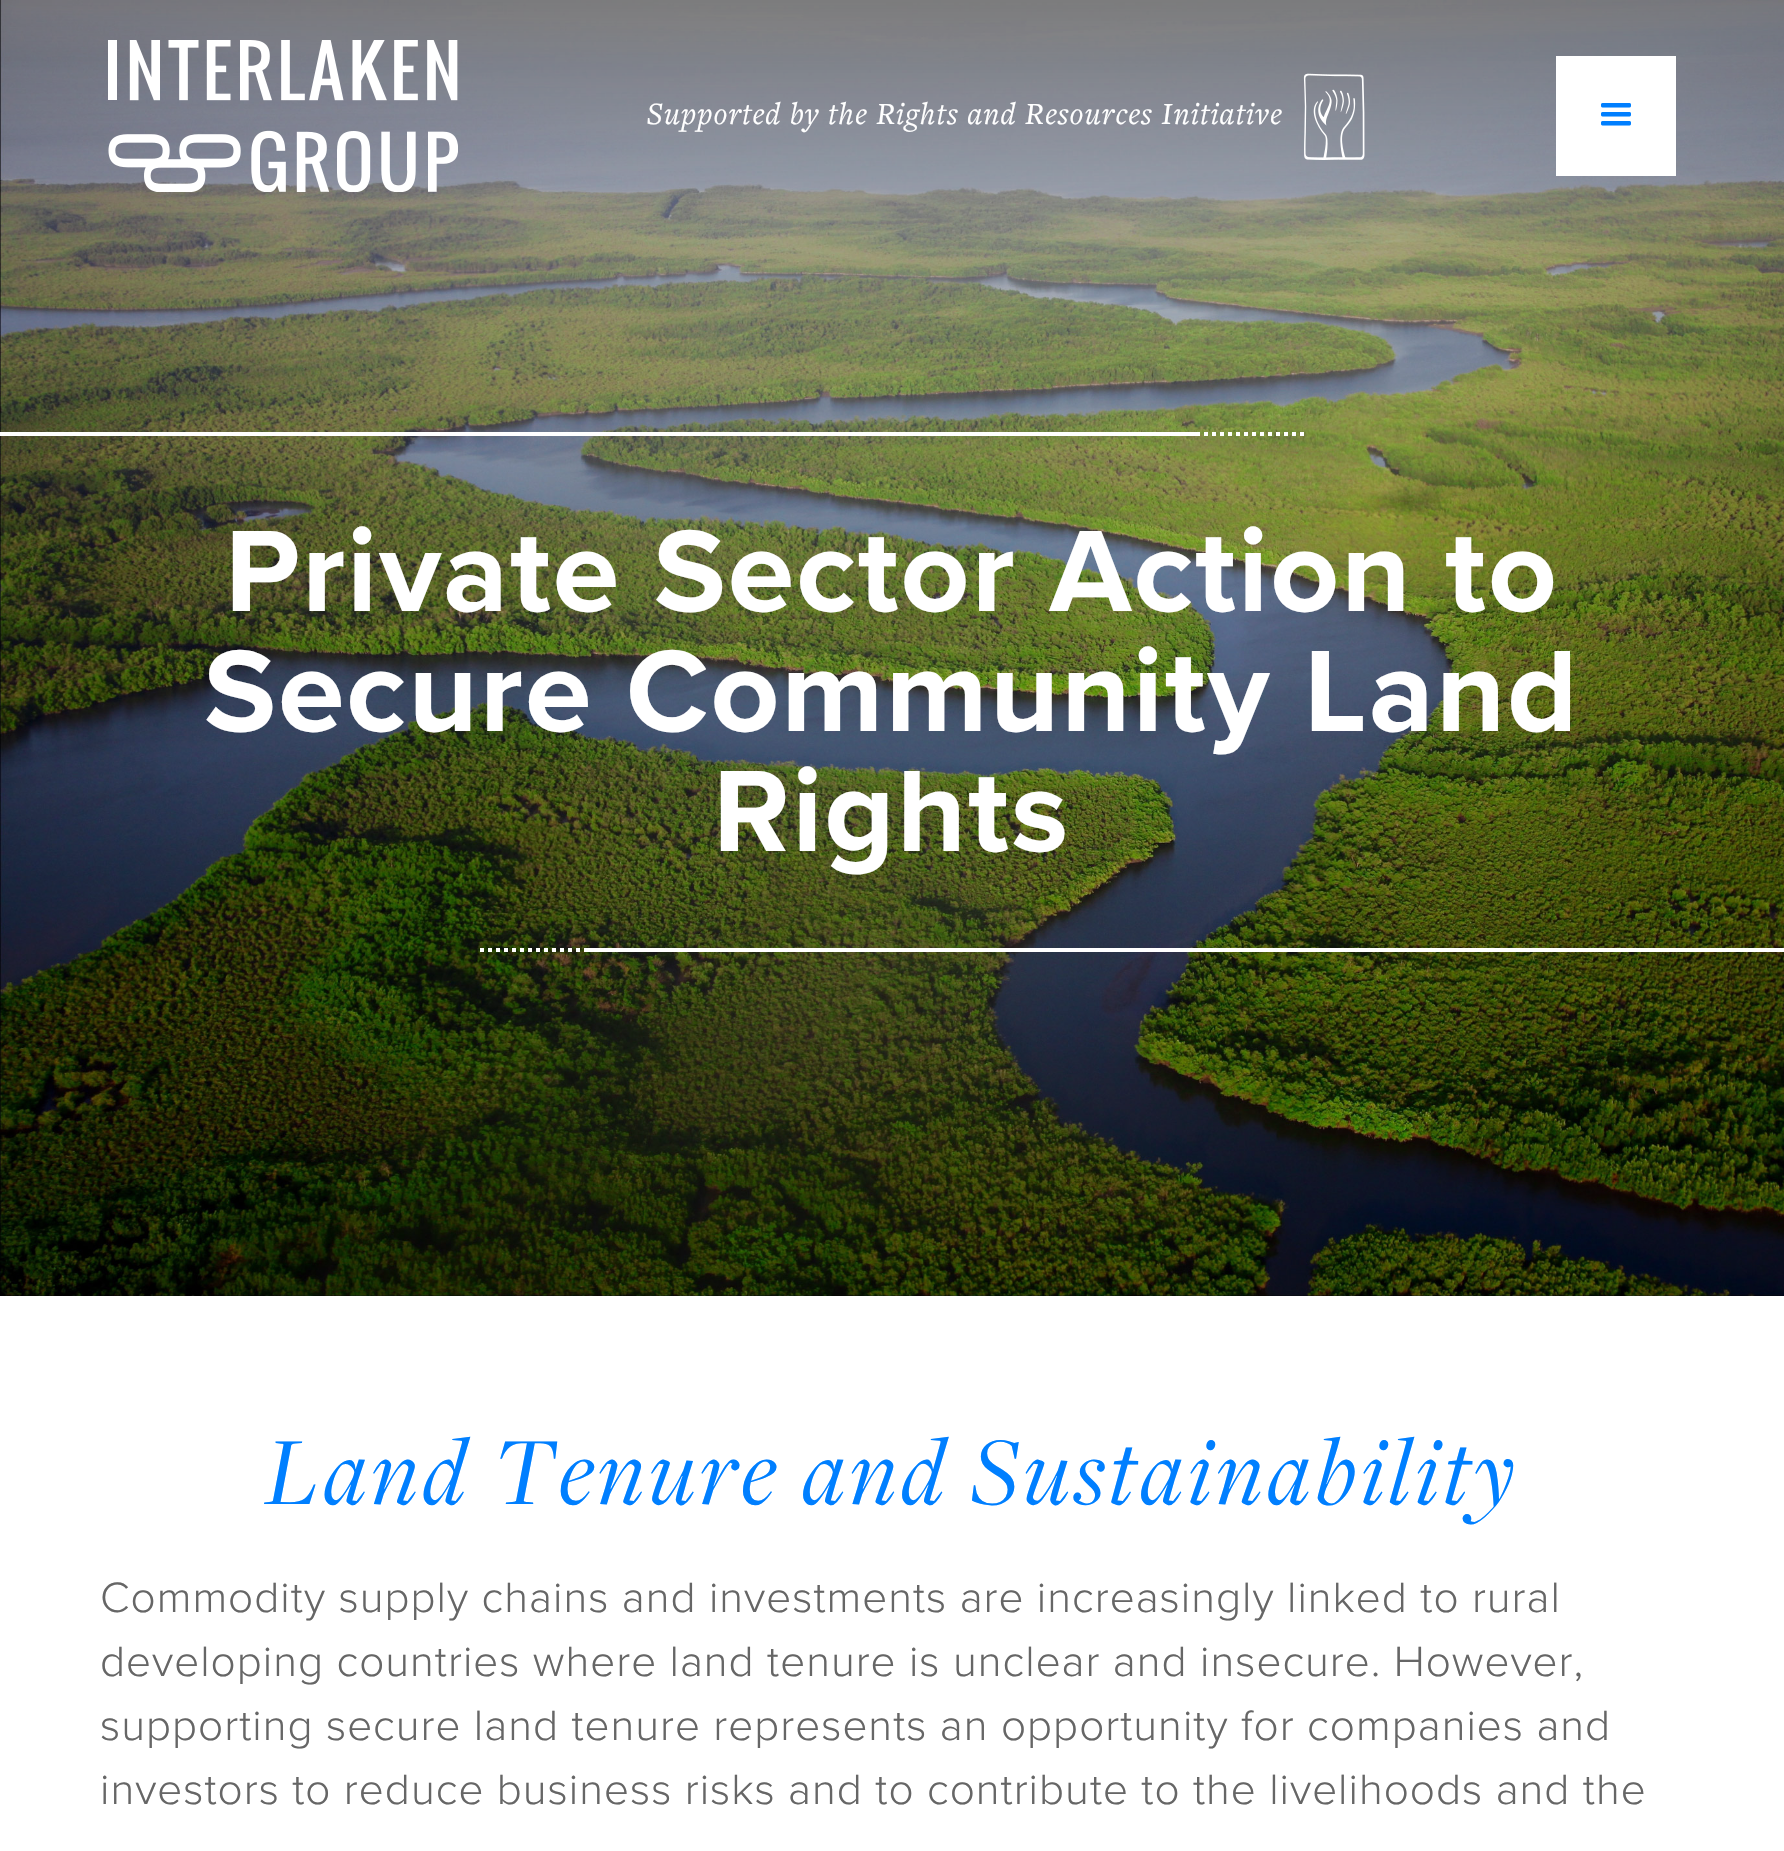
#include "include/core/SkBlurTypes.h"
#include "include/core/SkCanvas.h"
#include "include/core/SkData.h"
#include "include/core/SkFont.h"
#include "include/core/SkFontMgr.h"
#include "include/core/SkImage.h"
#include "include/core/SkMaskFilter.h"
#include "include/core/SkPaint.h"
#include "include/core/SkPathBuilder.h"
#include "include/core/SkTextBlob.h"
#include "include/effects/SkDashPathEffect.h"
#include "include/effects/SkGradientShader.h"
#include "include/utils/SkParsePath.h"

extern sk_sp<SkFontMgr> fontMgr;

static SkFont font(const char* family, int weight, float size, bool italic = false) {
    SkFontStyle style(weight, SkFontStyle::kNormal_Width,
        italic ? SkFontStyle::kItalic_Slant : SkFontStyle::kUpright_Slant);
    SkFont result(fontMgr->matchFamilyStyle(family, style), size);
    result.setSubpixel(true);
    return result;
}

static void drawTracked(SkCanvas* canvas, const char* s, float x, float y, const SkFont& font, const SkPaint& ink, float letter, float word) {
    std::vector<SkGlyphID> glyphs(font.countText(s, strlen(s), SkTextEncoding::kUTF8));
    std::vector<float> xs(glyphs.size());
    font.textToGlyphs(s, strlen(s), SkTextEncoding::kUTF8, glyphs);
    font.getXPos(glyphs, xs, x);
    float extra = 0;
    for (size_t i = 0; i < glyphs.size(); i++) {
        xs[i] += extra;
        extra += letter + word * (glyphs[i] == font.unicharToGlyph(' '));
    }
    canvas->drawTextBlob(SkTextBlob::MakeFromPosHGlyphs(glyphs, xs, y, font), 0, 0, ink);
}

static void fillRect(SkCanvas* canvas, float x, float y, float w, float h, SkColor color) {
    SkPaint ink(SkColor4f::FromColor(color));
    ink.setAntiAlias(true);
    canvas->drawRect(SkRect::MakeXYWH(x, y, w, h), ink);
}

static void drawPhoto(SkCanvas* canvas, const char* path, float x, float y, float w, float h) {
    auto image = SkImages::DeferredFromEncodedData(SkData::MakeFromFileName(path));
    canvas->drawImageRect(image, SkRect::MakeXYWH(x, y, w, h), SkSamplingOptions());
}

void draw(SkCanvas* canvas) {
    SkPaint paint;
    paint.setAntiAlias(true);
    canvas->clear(0xFFFFFFFF);
    drawPhoto(canvas, "assets/img4.png", 0, 0, 1784, 1296);
    drawPhoto(canvas, "assets/img1.png", 108, 40, 350, 152);
    SkFont font1 = font("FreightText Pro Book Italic", 400, 32, true);
    paint.setColor(0xFFFFFFFF);
    drawTracked(canvas, "Supported by the Rights and Resources Initiative", 647, 124, font1, paint, 1, 0);
    drawPhoto(canvas, "assets/img2.png", 1303, 73, 62, 87);
    fillRect(canvas, 1556, 56, 120, 120, 0xFFFFFFFF);
    drawPhoto(canvas, "assets/img3.png", 1601, 103, 30, 23);
    fillRect(canvas, 0, 432, 1200, 4, 0xFFFFFFFF);
    fillRect(canvas, 1204, 432, 4, 4, 0xFFFFFFFF);
    fillRect(canvas, 1212, 432, 4, 4, 0xFFFFFFFF);
    fillRect(canvas, 1220, 432, 4, 4, 0xFFFFFFFF);
    fillRect(canvas, 1228, 432, 4, 4, 0xFFFFFFFF);
    fillRect(canvas, 1236, 432, 4, 4, 0xFFFFFFFF);
    fillRect(canvas, 1244, 432, 4, 4, 0xFFFFFFFF);
    fillRect(canvas, 1252, 432, 4, 4, 0xFFFFFFFF);
    fillRect(canvas, 1260, 432, 4, 4, 0xFFFFFFFF);
    fillRect(canvas, 1268, 432, 4, 4, 0xFFFFFFFF);
    fillRect(canvas, 1276, 432, 4, 4, 0xFFFFFFFF);
    fillRect(canvas, 1284, 432, 4, 4, 0xFFFFFFFF);
    fillRect(canvas, 1292, 432, 4, 4, 0xFFFFFFFF);
    fillRect(canvas, 1300, 432, 4, 4, 0xFFFFFFFF);
    SkFont font2 = font("Proxima Nova", 700, 120);
    drawTracked(canvas, "Private Sector Action to", 225, 611, font2, paint, 2, 0);
    drawTracked(canvas, "Secure Community Land", 204, 731, font2, paint, 2, 0);
    drawTracked(canvas, "Rights", 713, 851, font2, paint, 2, 0);
    fillRect(canvas, 480, 948, 4, 4, 0xFFFFFFFF);
    fillRect(canvas, 488, 948, 4, 4, 0xFFFFFFFF);
    fillRect(canvas, 496, 948, 4, 4, 0xFFFFFFFF);
    fillRect(canvas, 504, 948, 4, 4, 0xFFFFFFFF);
    fillRect(canvas, 512, 948, 4, 4, 0xFFFFFFFF);
    fillRect(canvas, 520, 948, 4, 4, 0xFFFFFFFF);
    fillRect(canvas, 528, 948, 4, 4, 0xFFFFFFFF);
    fillRect(canvas, 536, 948, 4, 4, 0xFFFFFFFF);
    fillRect(canvas, 544, 948, 4, 4, 0xFFFFFFFF);
    fillRect(canvas, 552, 948, 4, 4, 0xFFFFFFFF);
    fillRect(canvas, 560, 948, 4, 4, 0xFFFFFFFF);
    fillRect(canvas, 568, 948, 4, 4, 0xFFFFFFFF);
    fillRect(canvas, 576, 948, 4, 4, 0xFFFFFFFF);
    fillRect(canvas, 584, 948, 1200, 4, 0xFFFFFFFF);
    SkFont font3 = font("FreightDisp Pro", 400, 100, true);
    paint.setColor(0xFF007FFF);
    drawTracked(canvas, "Land Tenure and Sustainability", 265, 1504, font3, paint, 4, 0);
    SkFont font4 = font("Proxima Nova", 300, 44);
    paint.setColor(0xFF666666);
    drawTracked(canvas, "Commodity supply chains and investments are increasingly linked to rural", 100, 1612, font4, paint, 1, 0);
    drawTracked(canvas, "developing countries where land tenure is unclear and insecure. However,", 100, 1676, font4, paint, 1, 0);
    drawTracked(canvas, "supporting secure land tenure represents an opportunity for companies and", 100, 1740, font4, paint, 1, 0);
    drawTracked(canvas, "investors to reduce business risks and to contribute to the livelihoods and the", 100, 1804, font4, paint, 1, 0);
}
